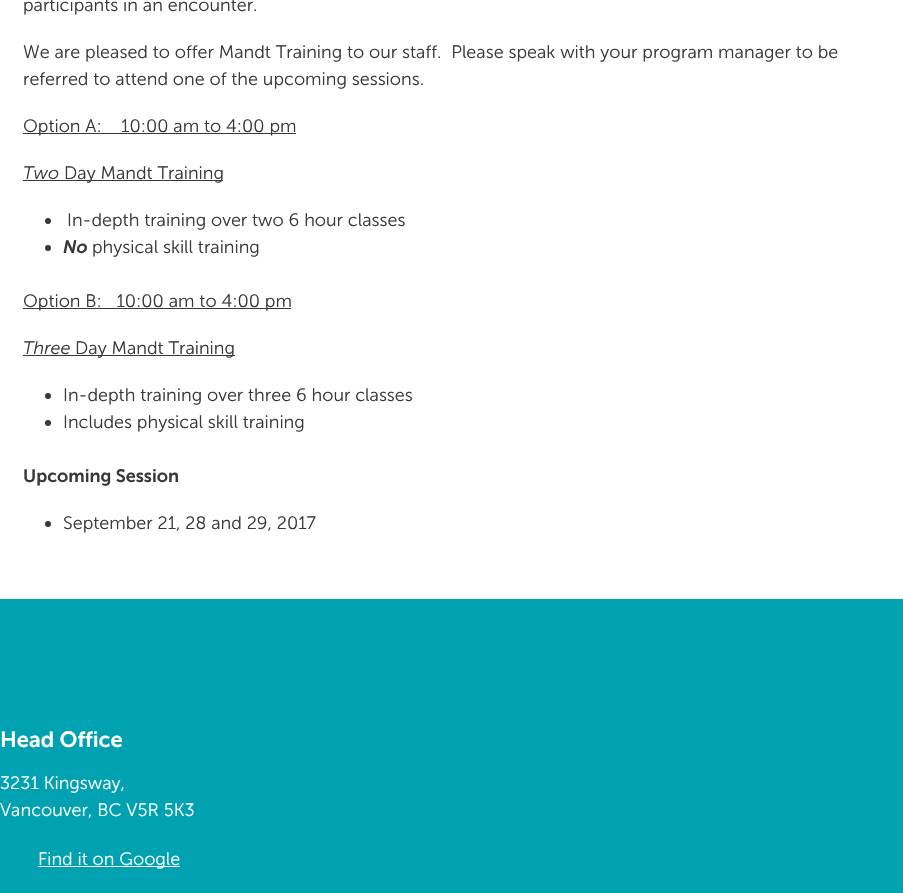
#include "include/core/SkBlurTypes.h"
#include "include/core/SkCanvas.h"
#include "include/core/SkData.h"
#include "include/core/SkFont.h"
#include "include/core/SkFontMgr.h"
#include "include/core/SkImage.h"
#include "include/core/SkMaskFilter.h"
#include "include/core/SkPaint.h"
#include "include/core/SkPathBuilder.h"
#include "include/core/SkTextBlob.h"
#include "include/effects/SkDashPathEffect.h"
#include "include/effects/SkGradientShader.h"
#include "include/utils/SkParsePath.h"

extern sk_sp<SkFontMgr> fontMgr;

static SkFont font(const char* family, int weight, float size, bool italic = false) {
    SkFontStyle style(weight, SkFontStyle::kNormal_Width,
        italic ? SkFontStyle::kItalic_Slant : SkFontStyle::kUpright_Slant);
    SkFont result(fontMgr->matchFamilyStyle(family, style), size);
    result.setSubpixel(true);
    return result;
}

static void drawLabel(SkCanvas* canvas, const char* s, float x, float y, const SkFont& font, SkColor color) {
    SkPaint ink(SkColor4f::FromColor(color));
    ink.setAntiAlias(true);
    canvas->drawString(s, x, y, font, ink);
}

static void fillRect(SkCanvas* canvas, float x, float y, float w, float h, SkColor color) {
    SkPaint ink(SkColor4f::FromColor(color));
    ink.setAntiAlias(true);
    canvas->drawRect(SkRect::MakeXYWH(x, y, w, h), ink);
}

void draw(SkCanvas* canvas) {
    SkPaint paint;
    paint.setAntiAlias(true);
    canvas->clear(0xFFFFFFFF);
    SkFont font1 = font("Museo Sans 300", 300, 18);
    drawLabel(canvas, "participants in an encounter.", 23, 11, font1, 0xFF383838);
    drawLabel(canvas, "We are pleased to offer Mandt Training to our staff.  Please speak with your program manager to be", 23, 58, font1, 0xFF383838);
    drawLabel(canvas, "referred to attend one of the upcoming sessions.", 23, 85, font1, 0xFF383838);
    fillRect(canvas, 23, 133, 273, 1, 0xFF383838);
    drawLabel(canvas, "Option A:    10:00 am to 4:00 pm", 23, 132, font1, 0xFF383838);
    SkFont font2 = font("Museo Sans 300", 300, 18, true);
    drawLabel(canvas, "Two", 23, 179, font2, 0xFF383838);
    fillRect(canvas, 23, 180, 200, 1, 0xFF383838);
    drawLabel(canvas, "Day Mandt Training", 64, 179, font1, 0xFF383838);
    paint.setColor(0xFF383838);
    canvas->drawCircle(48, 221, 3, paint);
    drawLabel(canvas, "In-depth training over two 6 hour classes", 67, 226, font1, 0xFF383838);
    canvas->drawCircle(48, 248, 3, paint);
    SkFont font3 = font("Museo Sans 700", 600, 18, true);
    drawLabel(canvas, "No", 63, 253, font3, 0xFF383838);
    drawLabel(canvas, "physical skill training", 92, 253, font1, 0xFF383838);
    fillRect(canvas, 23, 308, 268, 1, 0xFF383838);
    drawLabel(canvas, "Option B:   10:00 am to 4:00 pm", 23, 307, font1, 0xFF383838);
    drawLabel(canvas, "Three", 23, 354, font2, 0xFF383838);
    fillRect(canvas, 23, 355, 212, 1, 0xFF383838);
    drawLabel(canvas, "Day Mandt Training", 75, 354, font1, 0xFF383838);
    canvas->drawCircle(48, 396, 3, paint);
    drawLabel(canvas, "In-depth training over three 6 hour classes", 63, 401, font1, 0xFF383838);
    canvas->drawCircle(48, 423, 3, paint);
    drawLabel(canvas, "Includes physical skill training", 63, 428, font1, 0xFF383838);
    SkFont font4 = font("Museo Sans 700", 600, 18);
    drawLabel(canvas, "Upcoming Session", 23, 482, font4, 0xFF383838);
    canvas->drawCircle(48, 524, 3, paint);
    drawLabel(canvas, "September 21, 28 and 29, 2017", 63, 529, font1, 0xFF383838);
    fillRect(canvas, 0, 599, 903, 294, 0xFF00A2B1);
    SkFont font5 = font("Museo Sans 700", 600, 22);
    drawLabel(canvas, "Head Office", 0, 747, font5, 0xFFFFFFFF);
    drawLabel(canvas, "3231 Kingsway,", 0, 789, font1, 0xFFFFFFFF);
    drawLabel(canvas, "Vancouver, BC V5R 5K3", 0, 816, font1, 0xFFFFFFFF);
    fillRect(canvas, 38, 866, 142, 1, 0xFFFFFFFF);
    drawLabel(canvas, "Find it on Google", 38, 865, font1, 0xFFFFFFFF);
}
